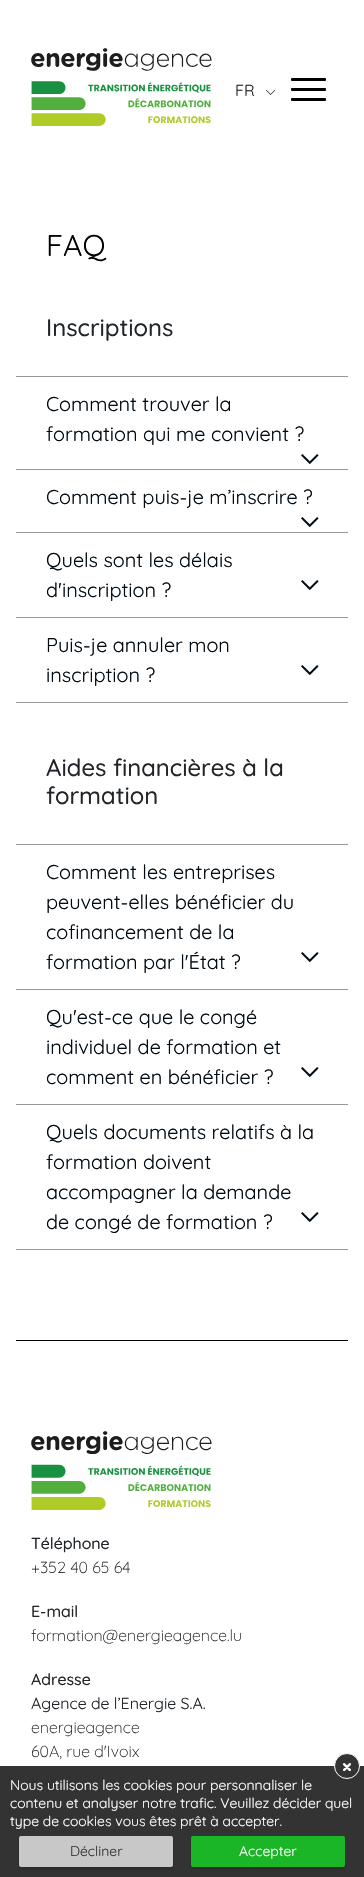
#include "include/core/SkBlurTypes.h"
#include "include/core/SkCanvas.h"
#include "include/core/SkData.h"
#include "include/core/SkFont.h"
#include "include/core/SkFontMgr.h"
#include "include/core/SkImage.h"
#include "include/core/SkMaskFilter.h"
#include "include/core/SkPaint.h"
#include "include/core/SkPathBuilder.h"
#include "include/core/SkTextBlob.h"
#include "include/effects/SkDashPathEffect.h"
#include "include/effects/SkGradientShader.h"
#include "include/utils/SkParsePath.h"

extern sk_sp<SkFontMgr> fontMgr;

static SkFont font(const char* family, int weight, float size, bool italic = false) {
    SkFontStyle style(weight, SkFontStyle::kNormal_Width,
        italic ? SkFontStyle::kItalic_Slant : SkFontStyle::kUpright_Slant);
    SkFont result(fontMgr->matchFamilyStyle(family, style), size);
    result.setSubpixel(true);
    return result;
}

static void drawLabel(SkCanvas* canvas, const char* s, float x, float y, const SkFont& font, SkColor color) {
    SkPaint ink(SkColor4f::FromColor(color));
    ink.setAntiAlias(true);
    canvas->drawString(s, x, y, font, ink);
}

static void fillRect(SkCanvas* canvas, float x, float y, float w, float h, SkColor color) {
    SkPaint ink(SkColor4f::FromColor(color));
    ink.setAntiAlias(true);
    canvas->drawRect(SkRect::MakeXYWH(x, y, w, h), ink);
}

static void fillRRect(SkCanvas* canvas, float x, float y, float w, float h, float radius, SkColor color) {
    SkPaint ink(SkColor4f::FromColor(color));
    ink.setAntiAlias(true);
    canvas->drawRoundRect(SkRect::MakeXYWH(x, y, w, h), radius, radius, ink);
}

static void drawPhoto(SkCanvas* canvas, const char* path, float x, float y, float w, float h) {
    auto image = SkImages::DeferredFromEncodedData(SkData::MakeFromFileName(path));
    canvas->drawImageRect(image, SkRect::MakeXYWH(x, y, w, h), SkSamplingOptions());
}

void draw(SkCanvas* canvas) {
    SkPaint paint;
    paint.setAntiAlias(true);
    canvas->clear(0xFFFFFFFF);
    drawPhoto(canvas, "assets/img1.png", 31, 48, 181, 78);
    SkFont font1 = font("Quicksand", 400, 16);
    drawLabel(canvas, "FR", 235, 96, font1, 0xFF212529);
    drawPhoto(canvas, "assets/img2.png", 266, 90, 10, 5);
    fillRRect(canvas, 291, 78, 35, 3, 1, 0xFF000000);
    fillRRect(canvas, 291, 88, 35, 3, 1, 0xFF000000);
    fillRRect(canvas, 291, 98, 35, 3, 1, 0xFF000000);
    SkFont font2 = font("Quicksand", 400, 30);
    drawLabel(canvas, "FAQ", 46, 256, font2, 0xFF000000);
    SkFont font3 = font("Quicksand", 500, 24);
    drawLabel(canvas, "Inscriptions", 46, 336, font3, 0xFF212529);
    fillRect(canvas, 16, 376, 332, 1, 0xFF979797);
    SkFont font4 = font("Quicksand", 400, 20);
    drawLabel(canvas, "Comment trouver la", 46, 411, font4, 0xFF000A12);
    drawLabel(canvas, "formation qui me convient ?", 46, 441, font4, 0xFF000A12);
    drawPhoto(canvas, "assets/img3.png", 301, 454, 18, 10);
    fillRect(canvas, 16, 469, 332, 1, 0xFF979797);
    drawLabel(canvas, "Comment puis-je m’inscrire ?", 46, 504, font4, 0xFF000A12);
    drawPhoto(canvas, "assets/img3.png", 301, 517, 18, 10);
    fillRect(canvas, 16, 532, 332, 1, 0xFF979797);
    drawLabel(canvas, "Quels sont les délais", 46, 567, font4, 0xFF000A12);
    drawLabel(canvas, "d'inscription ?", 46, 597, font4, 0xFF000A12);
    drawPhoto(canvas, "assets/img3.png", 301, 580, 18, 10);
    fillRect(canvas, 16, 617, 332, 1, 0xFF979797);
    fillRect(canvas, 16, 702, 332, 1, 0xFF979797);
    drawLabel(canvas, "Puis-je annuler mon", 46, 652, font4, 0xFF000A12);
    drawLabel(canvas, "inscription ?", 46, 682, font4, 0xFF000A12);
    drawPhoto(canvas, "assets/img3.png", 301, 665, 18, 10);
    drawLabel(canvas, "Aides financières à la", 46, 776, font3, 0xFF212529);
    drawLabel(canvas, "formation", 46, 804, font3, 0xFF212529);
    fillRect(canvas, 16, 844, 332, 1, 0xFF979797);
    drawLabel(canvas, "Comment les entreprises", 46, 879, font4, 0xFF000A12);
    drawLabel(canvas, "peuvent-elles bénéficier du", 46, 909, font4, 0xFF000A12);
    drawLabel(canvas, "cofinancement de la", 46, 939, font4, 0xFF000A12);
    drawLabel(canvas, "formation par l'État ?", 46, 969, font4, 0xFF000A12);
    drawPhoto(canvas, "assets/img3.png", 301, 952, 18, 10);
    fillRect(canvas, 16, 989, 332, 1, 0xFF979797);
    drawLabel(canvas, "Qu'est-ce que le congé", 46, 1024, font4, 0xFF000A12);
    drawLabel(canvas, "individuel de formation et", 46, 1054, font4, 0xFF000A12);
    drawLabel(canvas, "comment en bénéficier ?", 46, 1084, font4, 0xFF000A12);
    drawPhoto(canvas, "assets/img3.png", 301, 1067, 18, 10);
    fillRect(canvas, 16, 1104, 332, 1, 0xFF979797);
    fillRect(canvas, 16, 1249, 332, 1, 0xFF979797);
    drawLabel(canvas, "Quels documents relatifs à la", 46, 1139, font4, 0xFF000A12);
    drawLabel(canvas, "formation doivent", 46, 1169, font4, 0xFF000A12);
    drawLabel(canvas, "accompagner la demande", 46, 1199, font4, 0xFF000A12);
    drawLabel(canvas, "de congé de formation ?", 46, 1229, font4, 0xFF000A12);
    drawPhoto(canvas, "assets/img3.png", 301, 1212, 18, 10);
    fillRect(canvas, 16, 1340, 332, 1, 0xFF000000);
    drawPhoto(canvas, "assets/img4.png", 31, 1431, 181, 79);
    SkFont font5 = font("Quicksand", 500, 16);
    drawLabel(canvas, "Téléphone", 31, 1549, font5, 0xFF212529);
    SkFont font6 = font("Quicksand", 300, 16);
    drawLabel(canvas, "+352 40 65 64", 31, 1573, font6, 0xFF212529);
    drawLabel(canvas, "E-mail", 31, 1617, font5, 0xFF212529);
    drawLabel(canvas, "formation@energieagence.lu", 31, 1641, font6, 0xFF212529);
    drawLabel(canvas, "Adresse", 31, 1685, font5, 0xFF212529);
    drawLabel(canvas, "Agence de l’Energie S.A.", 31, 1709, font1, 0xFF212529);
    drawLabel(canvas, "energieagence", 31, 1733, font6, 0xFF212529);
    drawLabel(canvas, "60A, rue d'Ivoix", 31, 1757, font6, 0xFF212529);
    fillRect(canvas, 0, 1766, 364, 111, 0xFF333333);
    paint.setColor(0xFF333333);
    canvas->drawCircle(347, 1766, 12.5f, paint);
    paint.setStroke(true);
    paint.setStrokeWidth(1);
    paint.setColor(0xFFFFFFFF);
    canvas->drawCircle(347, 1766, 12.5f, paint);
    SkFont font7 = font("Quicksand", 700, 20);
    drawLabel(canvas, "×", 342, 1773, font7, 0xFFFFFFFF);
    paint.setStroke(false);
    paint.setColor(0x33000000);
    paint.setMaskFilter(SkMaskFilter::MakeBlur(kNormal_SkBlurStyle, 1.5f));
    canvas->drawRoundRect(SkRect::MakeXYWH(19, 1838, 154, 31), 2, 2, paint);
    paint.setMaskFilter(nullptr);
    fillRRect(canvas, 19, 1836, 154, 31, 2, 0xFFC8C8C8);
    SkFont font8 = font("Quicksand", 400, 14);
    drawLabel(canvas, "Décliner", 70, 1856, font8, 0xFF333333);
    paint.setMaskFilter(SkMaskFilter::MakeBlur(kNormal_SkBlurStyle, 1.5f));
    canvas->drawRoundRect(SkRect::MakeXYWH(191, 1838, 154, 31), 2, 2, paint);
    paint.setMaskFilter(nullptr);
    fillRRect(canvas, 191, 1836, 154, 31, 2, 0xFF1BB627);
    drawLabel(canvas, "Accepter", 239, 1856, font8, 0xFFFFFFFF);
    drawLabel(canvas, "Nous utilisons les cookies pour personnaliser le", 10, 1790, font8, 0xFFFFFFFF);
    drawLabel(canvas, "contenu et analyser notre trafic. Veuillez décider quel", 10, 1808, font8, 0xFFFFFFFF);
    drawLabel(canvas, "type de cookies vous êtes prêt à accepter.", 10, 1826, font8, 0xFFFFFFFF);
}
